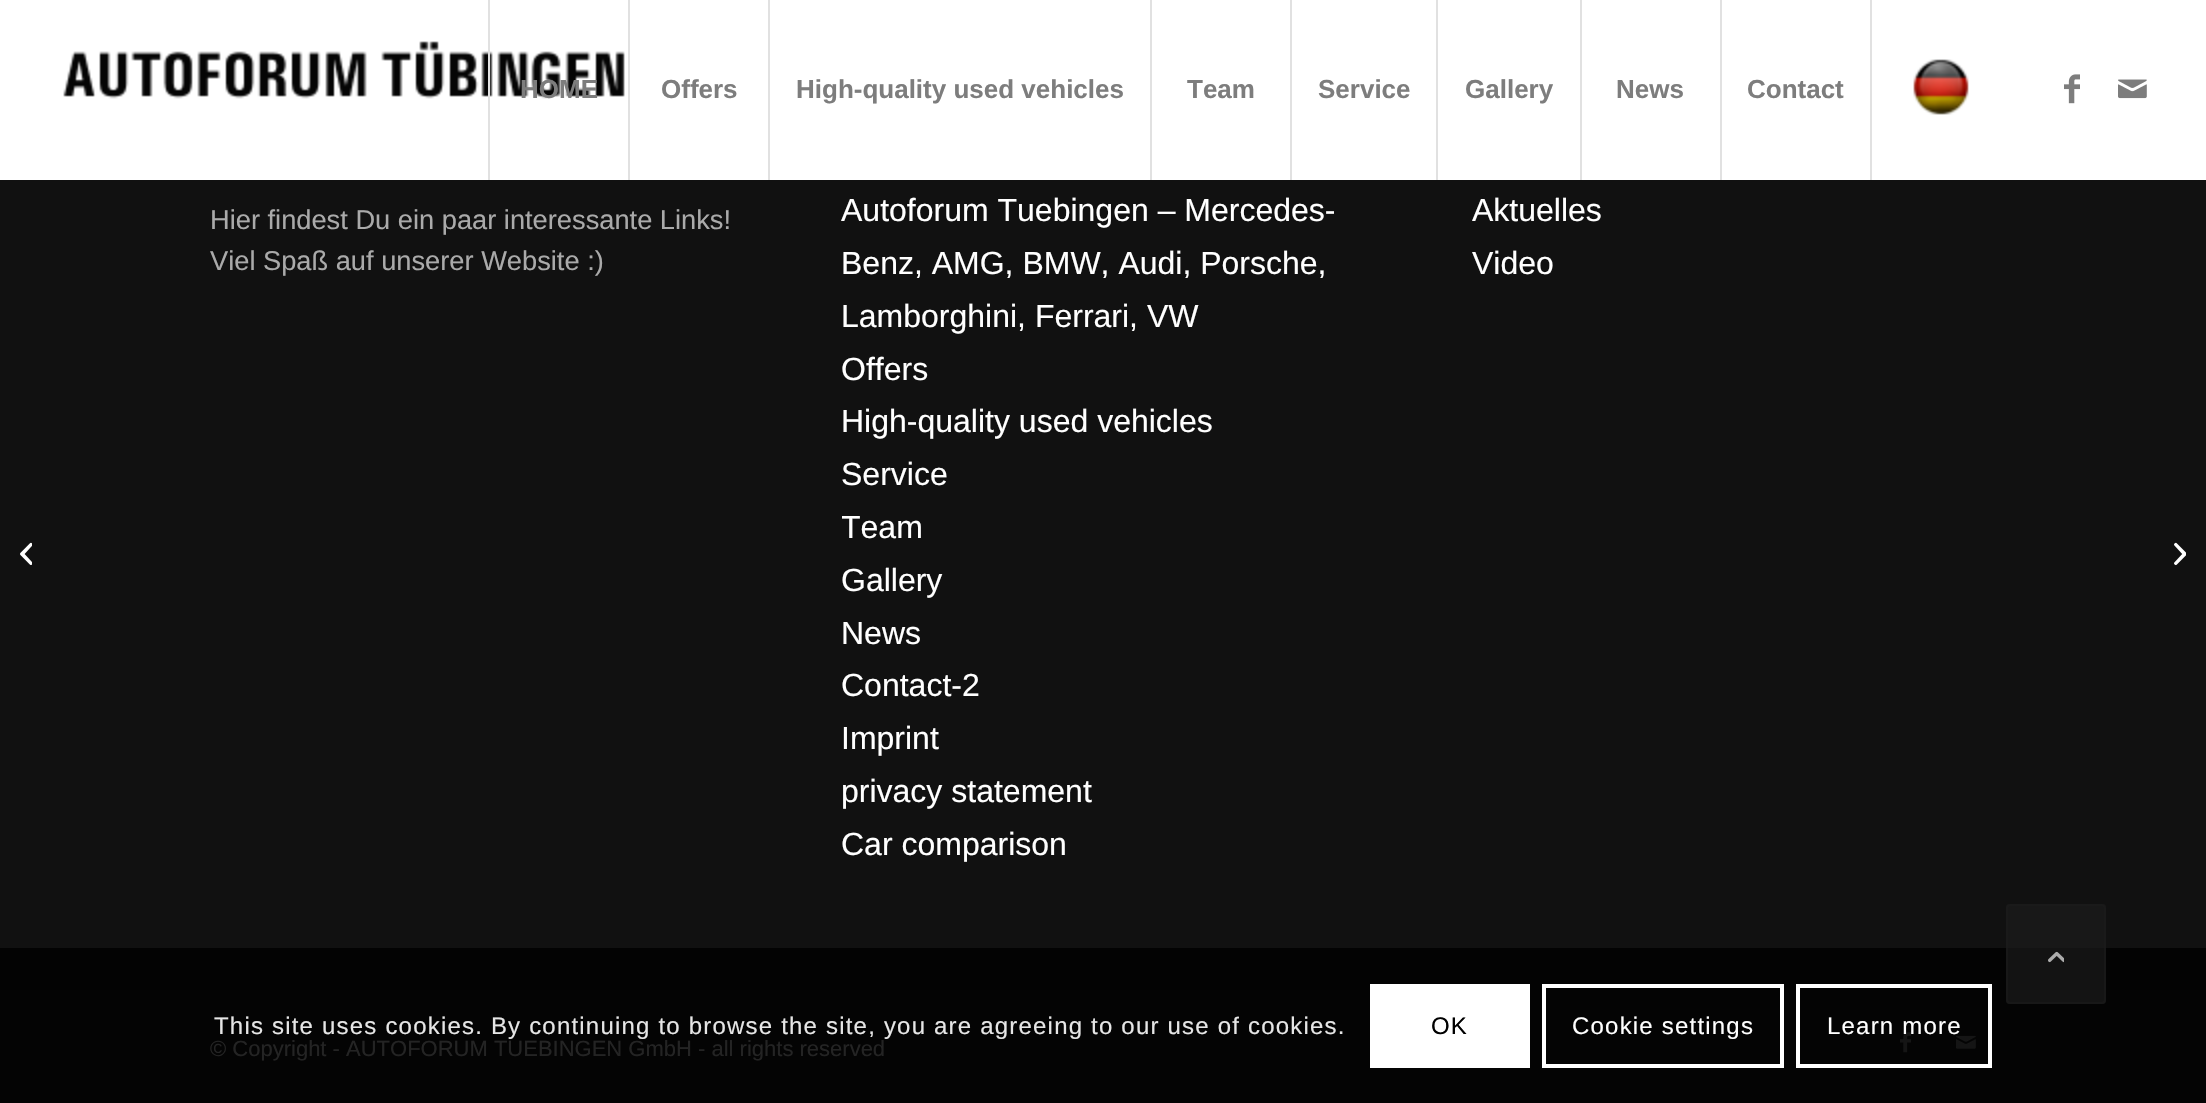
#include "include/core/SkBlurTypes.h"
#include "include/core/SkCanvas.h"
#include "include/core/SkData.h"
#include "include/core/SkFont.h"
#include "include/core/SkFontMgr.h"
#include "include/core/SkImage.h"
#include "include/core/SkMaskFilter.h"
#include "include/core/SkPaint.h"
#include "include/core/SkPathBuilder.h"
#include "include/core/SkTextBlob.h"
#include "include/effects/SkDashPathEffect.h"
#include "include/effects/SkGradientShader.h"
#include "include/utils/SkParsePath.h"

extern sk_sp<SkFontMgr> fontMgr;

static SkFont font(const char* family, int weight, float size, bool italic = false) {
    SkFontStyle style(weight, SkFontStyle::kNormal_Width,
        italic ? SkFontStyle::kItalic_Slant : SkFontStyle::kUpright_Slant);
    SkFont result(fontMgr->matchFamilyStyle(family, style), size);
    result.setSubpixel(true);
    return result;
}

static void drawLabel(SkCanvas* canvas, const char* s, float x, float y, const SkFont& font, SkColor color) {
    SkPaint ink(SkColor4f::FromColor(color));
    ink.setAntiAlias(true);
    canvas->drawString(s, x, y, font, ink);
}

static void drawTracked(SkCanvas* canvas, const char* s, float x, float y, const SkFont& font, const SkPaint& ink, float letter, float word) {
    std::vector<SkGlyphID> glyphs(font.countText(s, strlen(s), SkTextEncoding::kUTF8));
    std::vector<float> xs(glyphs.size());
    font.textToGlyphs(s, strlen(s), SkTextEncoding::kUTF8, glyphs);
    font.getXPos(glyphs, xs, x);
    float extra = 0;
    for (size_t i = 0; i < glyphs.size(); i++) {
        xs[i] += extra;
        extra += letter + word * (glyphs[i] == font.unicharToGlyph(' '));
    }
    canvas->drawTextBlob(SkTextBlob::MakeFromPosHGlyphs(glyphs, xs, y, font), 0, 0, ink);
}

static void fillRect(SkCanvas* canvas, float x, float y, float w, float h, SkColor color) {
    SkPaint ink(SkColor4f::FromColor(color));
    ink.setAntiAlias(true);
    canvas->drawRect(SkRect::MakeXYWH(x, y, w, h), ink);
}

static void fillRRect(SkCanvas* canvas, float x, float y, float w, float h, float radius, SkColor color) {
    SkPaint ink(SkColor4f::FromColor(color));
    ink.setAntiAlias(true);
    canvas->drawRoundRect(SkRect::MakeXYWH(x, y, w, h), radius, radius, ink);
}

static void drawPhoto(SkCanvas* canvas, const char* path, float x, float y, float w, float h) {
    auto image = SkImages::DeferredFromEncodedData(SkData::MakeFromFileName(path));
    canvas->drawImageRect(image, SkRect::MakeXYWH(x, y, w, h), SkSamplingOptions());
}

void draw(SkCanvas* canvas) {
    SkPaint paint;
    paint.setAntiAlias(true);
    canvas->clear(0xFF111111);
    fillRect(canvas, 0, 0, 2206, 180, 0xFFFFFFFF);
    drawPhoto(canvas, "assets/img1.png", 63, 41, 562, 58);
    fillRect(canvas, 488, 0, 2, 180, 0xFFE1E1E1);
    SkFont font1 = font("Liberation Sans", 700, 26);
    drawLabel(canvas, "HOME", 520, 98, font1, 0xFF7D7D7D);
    fillRect(canvas, 628, 0, 2, 180, 0xFFE1E1E1);
    drawLabel(canvas, "Offers", 661, 98, font1, 0xFF7D7D7D);
    fillRect(canvas, 768, 0, 2, 180, 0xFFE1E1E1);
    drawLabel(canvas, "High-quality used vehicles", 796, 98, font1, 0xFF7D7D7D);
    fillRect(canvas, 1150, 0, 2, 180, 0xFFE1E1E1);
    drawLabel(canvas, "Team", 1187, 98, font1, 0xFF7D7D7D);
    fillRect(canvas, 1290, 0, 2, 180, 0xFFE1E1E1);
    drawLabel(canvas, "Service", 1318, 98, font1, 0xFF7D7D7D);
    fillRect(canvas, 1436, 0, 2, 180, 0xFFE1E1E1);
    drawLabel(canvas, "Gallery", 1465, 98, font1, 0xFF7D7D7D);
    fillRect(canvas, 1580, 0, 2, 180, 0xFFE1E1E1);
    drawLabel(canvas, "News", 1616, 98, font1, 0xFF7D7D7D);
    fillRect(canvas, 1720, 0, 2, 180, 0xFFE1E1E1);
    drawLabel(canvas, "Contact", 1747, 98, font1, 0xFF7D7D7D);
    fillRect(canvas, 1870, 0, 2, 180, 0xFFE1E1E1);
    drawPhoto(canvas, "assets/img2.png", 1913, 59, 56, 56);
    drawPhoto(canvas, "assets/img3.png", 2064, 74, 16, 30);
    drawPhoto(canvas, "assets/img4.png", 2118, 79, 29, 20);
    drawPhoto(canvas, "assets/img5.png", 20, 542, 12, 23);
    fillRect(canvas, 0, 948, 2206, 42, 0xFF030303);
    SkFont font2 = font("Liberation Sans", 400, 27.25f);
    drawLabel(canvas, "Hier findest Du ein paar interessante Links!", 210, 229, font2, 0xFFAAAAAA);
    drawLabel(canvas, "Viel Spaß auf unserer Website :)", 210, 270, font2, 0xFFAAAAAA);
    SkFont font3 = font("Liberation Sans", 400, 32);
    drawLabel(canvas, "Autoforum Tuebingen – Mercedes-", 841, 221, font3, 0xFFFFFFFF);
    drawLabel(canvas, "Benz, AMG, BMW, Audi, Porsche,", 841, 274, font3, 0xFFFFFFFF);
    drawLabel(canvas, "Lamborghini, Ferrari, VW", 841, 327, font3, 0xFFFFFFFF);
    drawLabel(canvas, "Offers", 841, 380, font3, 0xFFFFFFFF);
    drawLabel(canvas, "High-quality used vehicles", 841, 432, font3, 0xFFFFFFFF);
    drawLabel(canvas, "Service", 841, 485, font3, 0xFFFFFFFF);
    canvas->save();
    canvas->clipRect(SkRect::MakeXYWH(842, 42, 522, 830));
    drawLabel(canvas, "Team", 841, 538, font3, 0xFFFFFFFF);
    canvas->restore();
    drawLabel(canvas, "Gallery", 841, 591, font3, 0xFFFFFFFF);
    drawLabel(canvas, "News", 841, 644, font3, 0xFFFFFFFF);
    drawLabel(canvas, "Contact-2", 841, 696, font3, 0xFFFFFFFF);
    drawLabel(canvas, "Imprint", 841, 749, font3, 0xFFFFFFFF);
    drawLabel(canvas, "privacy statement", 841, 802, font3, 0xFFFFFFFF);
    drawLabel(canvas, "Car comparison", 841, 855, font3, 0xFFFFFFFF);
    drawLabel(canvas, "Aktuelles", 1472, 221, font3, 0xFFFFFFFF);
    drawLabel(canvas, "Video", 1472, 274, font3, 0xFFFFFFFF);
    fillRect(canvas, 0, 990, 2206, 113, 0xFF040404);
    SkFont font4 = font("Liberation Sans", 400, 22);
    drawLabel(canvas, "© Copyright - AUTOFORUM TUEBINGEN GmbH - all rights reserved", 210, 1056, font4, 0xFF242424);
    drawPhoto(canvas, "assets/img6.png", 1900, 1032, 11, 21);
    drawPhoto(canvas, "assets/img7.png", 1956, 1035, 20, 14);
    drawPhoto(canvas, "assets/img8.png", 2174, 542, 12, 24);
    fillRRect(canvas, 2006, 904, 100, 100, 4, 0xB3191919);
    paint.setStroke(true);
    paint.setStrokeWidth(2);
    paint.setColor(0xB3191919);
    canvas->drawRoundRect(SkRect::MakeXYWH(2007, 905, 98, 98), 3, 3, paint);
    drawPhoto(canvas, "assets/img9.png", 2048, 951, 16, 12);
    SkFont font5 = font("Liberation Sans", 400, 24);
    paint.setStroke(false);
    paint.setColor(0xFFE6E6E6);
    drawTracked(canvas, "This site uses cookies. By continuing to browse the site, you are agreeing to our use of cookies.", 214, 1034, font5, paint, 1.2f, 0);
    fillRect(canvas, 1370, 984, 160, 84, 0xFFFFFFFF);
    paint.setColor(0xFF000000);
    drawTracked(canvas, "OK", 1431, 1034, font5, paint, 1.2f, 0);
    paint.setStroke(true);
    paint.setStrokeWidth(4);
    paint.setColor(0xFFFFFFFF);
    canvas->drawRect(SkRect::MakeXYWH(1544, 986, 238, 80), paint);
    paint.setStroke(false);
    drawTracked(canvas, "Cookie settings", 1572, 1034, font5, paint, 1.2f, 0);
    paint.setStroke(true);
    canvas->drawRect(SkRect::MakeXYWH(1798, 986, 192, 80), paint);
    paint.setStroke(false);
    drawTracked(canvas, "Learn more", 1827, 1034, font5, paint, 1.2f, 0);
}
